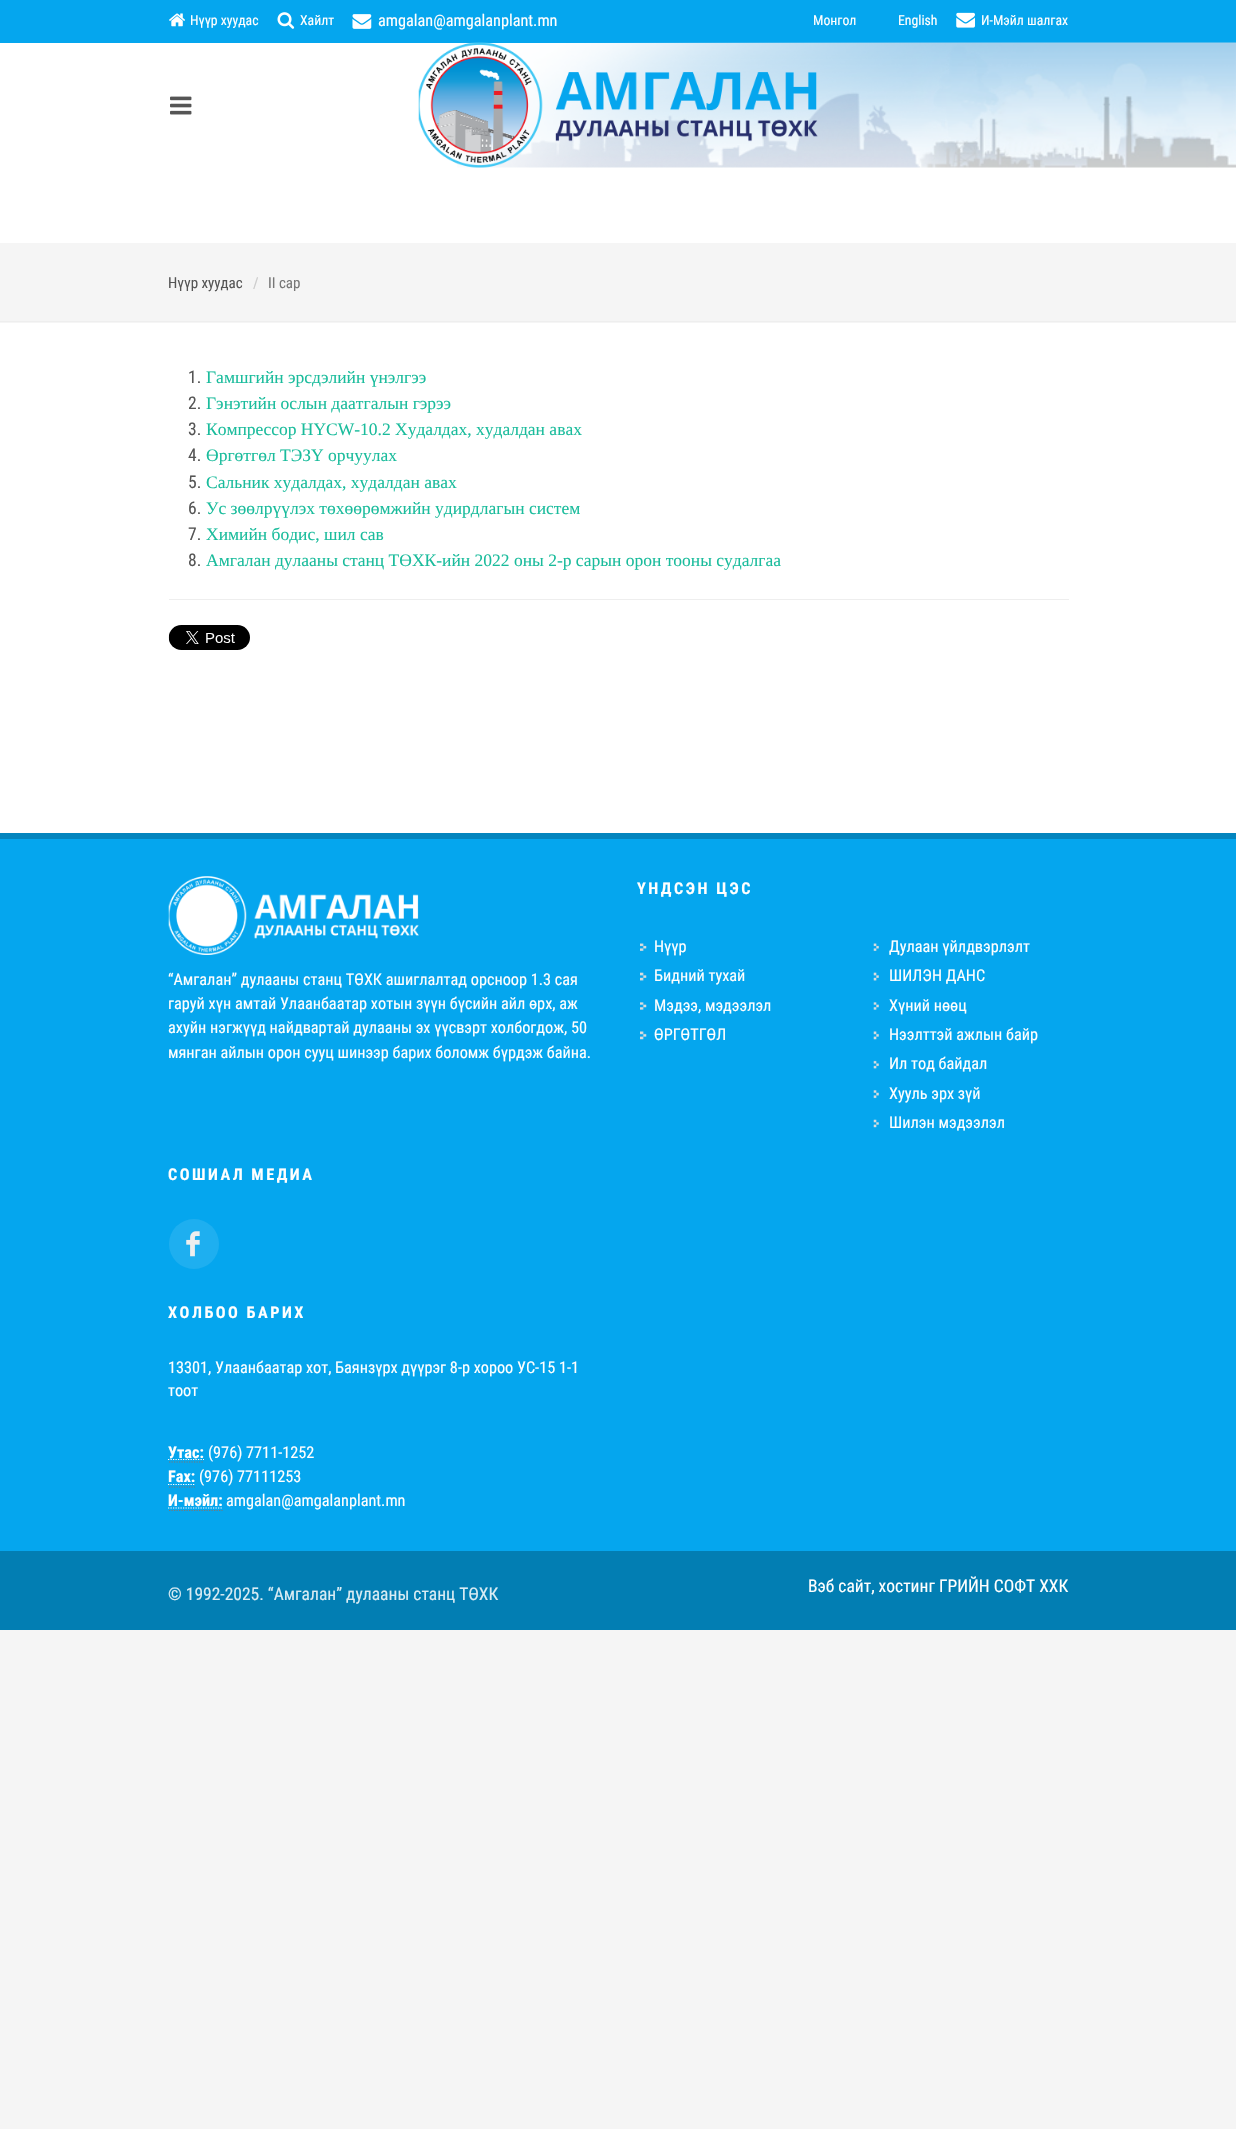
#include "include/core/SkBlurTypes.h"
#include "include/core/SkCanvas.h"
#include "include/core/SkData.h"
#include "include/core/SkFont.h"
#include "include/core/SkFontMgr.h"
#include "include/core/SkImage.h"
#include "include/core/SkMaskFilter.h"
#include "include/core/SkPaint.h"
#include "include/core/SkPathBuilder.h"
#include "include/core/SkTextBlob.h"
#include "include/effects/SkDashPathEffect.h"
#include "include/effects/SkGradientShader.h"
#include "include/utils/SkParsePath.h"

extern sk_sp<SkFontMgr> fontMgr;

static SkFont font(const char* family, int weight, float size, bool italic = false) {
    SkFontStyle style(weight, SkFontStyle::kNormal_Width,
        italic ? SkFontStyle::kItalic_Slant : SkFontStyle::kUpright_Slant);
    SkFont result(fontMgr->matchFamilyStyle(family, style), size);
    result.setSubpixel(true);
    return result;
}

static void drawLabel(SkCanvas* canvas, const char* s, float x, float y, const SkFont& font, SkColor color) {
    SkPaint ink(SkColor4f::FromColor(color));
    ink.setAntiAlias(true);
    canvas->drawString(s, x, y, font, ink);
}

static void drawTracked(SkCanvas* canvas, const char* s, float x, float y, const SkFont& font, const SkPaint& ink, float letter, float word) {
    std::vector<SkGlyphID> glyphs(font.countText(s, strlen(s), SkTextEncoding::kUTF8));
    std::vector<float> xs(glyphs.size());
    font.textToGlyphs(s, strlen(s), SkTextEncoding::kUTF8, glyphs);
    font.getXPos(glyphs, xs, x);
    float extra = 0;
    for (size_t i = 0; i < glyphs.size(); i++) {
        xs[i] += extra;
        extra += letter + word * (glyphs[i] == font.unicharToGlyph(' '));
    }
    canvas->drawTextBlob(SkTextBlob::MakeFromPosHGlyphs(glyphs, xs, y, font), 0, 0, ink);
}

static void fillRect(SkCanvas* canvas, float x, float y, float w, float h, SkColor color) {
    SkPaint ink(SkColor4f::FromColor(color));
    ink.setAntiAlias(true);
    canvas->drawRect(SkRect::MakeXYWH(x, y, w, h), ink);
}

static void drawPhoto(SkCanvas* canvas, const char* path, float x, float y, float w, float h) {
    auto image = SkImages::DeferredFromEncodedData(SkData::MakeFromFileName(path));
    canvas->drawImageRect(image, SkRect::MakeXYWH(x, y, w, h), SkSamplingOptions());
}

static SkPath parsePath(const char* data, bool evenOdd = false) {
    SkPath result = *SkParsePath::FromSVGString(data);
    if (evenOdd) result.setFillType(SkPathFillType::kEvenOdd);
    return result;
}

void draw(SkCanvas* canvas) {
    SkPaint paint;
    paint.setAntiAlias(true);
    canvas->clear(0xFFF5F5F5);
    fillRect(canvas, 0, 43, 1236, 790, 0xFFFFFFFF);
    fillRect(canvas, 0, 0, 1236, 43, 0xFF05A6EE);
    drawPhoto(canvas, "assets/img1.png", 169, 13, 16, 14);
    SkFont font1 = font("Roboto Condensed", 400, 13.75f);
    drawLabel(canvas, "Нүүр хуудас", 190, 25, font1, 0xFFFFFFFF);
    drawPhoto(canvas, "assets/img2.png", 277, 12, 18, 17);
    drawLabel(canvas, "Хайлт", 300, 25, font1, 0xFFFFFFFF);
    drawPhoto(canvas, "assets/img3.png", 352, 14, 20, 15);
    SkFont font2 = font("Roboto Condensed", 400, 16.25f);
    drawLabel(canvas, "amgalan@amgalanplant.mn", 378, 26, font2, 0xFFFFFFFF);
    drawLabel(canvas, "Монгол", 813, 25, font1, 0xFFFFFFFF);
    drawLabel(canvas, "English", 898, 25, font1, 0xFFFFFFFF);
    drawPhoto(canvas, "assets/img4.png", 956, 12, 19, 16);
    drawLabel(canvas, "И-Мэйл шалгах", 981, 25, font1, 0xFFFFFFFF);
    drawPhoto(canvas, "assets/img5.png", 457, 42, 779, 126);
    fillRect(canvas, 0, 243, 1236, 80, 0xFFF5F5F5);
    drawPhoto(canvas, "assets/img6.png", 170, 96, 22, 19);
    drawPhoto(canvas, "assets/img7.png", 418, 42, 400, 126);
    fillRect(canvas, 0, 321, 1236, 1, 0xFFEEEEEE);
    SkFont font3 = font("Roboto Condensed", 400, 15);
    drawLabel(canvas, "Нүүр хуудас", 168, 288, font3, 0xFF555555);
    drawLabel(canvas, "/", 253, 288, font3, 0xFFCCCCCC);
    drawLabel(canvas, "II сар", 268, 288, font3, 0xFF777777);
    SkFont font4 = font("Roboto Condensed", 400, 17.5f);
    drawLabel(canvas, "1.", 188, 383, font4, 0xFF555555);
    SkFont font5 = font("Liberation Serif", 400, 17.5f);
    drawLabel(canvas, "Гамшгийн эрсдэлийн үнэлгээ", 206, 383, font5, 0xFF1ABC9C);
    drawLabel(canvas, "2.", 188, 409, font4, 0xFF555555);
    drawLabel(canvas, "Гэнэтийн ослын даатгалын гэрээ", 206, 409, font5, 0xFF1ABC9C);
    drawLabel(canvas, "3.", 188, 435, font4, 0xFF555555);
    drawLabel(canvas, "Компрессор HYCW-10.2 Худалдах, худалдан авах", 206, 435, font5, 0xFF1ABC9C);
    drawLabel(canvas, "4.", 188, 461, font4, 0xFF555555);
    drawLabel(canvas, "Өргөтгөл ТЭЗҮ орчуулах", 206, 461, font5, 0xFF1ABC9C);
    drawLabel(canvas, "5.", 188, 488, font4, 0xFF555555);
    drawLabel(canvas, "Сальник худалдах, худалдан авах", 206, 488, font5, 0xFF1ABC9C);
    drawLabel(canvas, "6.", 188, 514, font4, 0xFF555555);
    drawLabel(canvas, "Ус зөөлрүүлэх төхөөрөмжийн удирдлагын систем", 206, 514, font5, 0xFF1ABC9C);
    drawLabel(canvas, "7.", 188, 540, font4, 0xFF555555);
    drawLabel(canvas, "Химийн бодис, шил сав", 206, 540, font5, 0xFF1ABC9C);
    drawLabel(canvas, "8.", 188, 566, font4, 0xFF555555);
    drawLabel(canvas, "Амгалан дулааны станц ТӨХК-ийн 2022 оны 2-р сарын орон тооны судалгаа", 206, 566, font5, 0xFF1ABC9C);
    fillRect(canvas, 169, 599, 900, 1, 0xFFEEEEEE);
    drawPhoto(canvas, "assets/img8.png", 168, 625, 82, 25);
    fillRect(canvas, 0, 839, 1236, 712, 0xFF05A6EE);
    fillRect(canvas, 0, 833, 1236, 6, 0xFF0485BE);
    drawPhoto(canvas, "assets/img9.png", 168, 876, 251, 79);
    drawLabel(canvas, "“Амгалан” дулааны станц ТӨХК ашиглалтад орсноор 1.3 сая", 168, 985, font2, 0xFFFFFFFF);
    drawLabel(canvas, "гаруй хүн амтай Улаанбаатар хотын зүүн бүсийн айл өрх, аж", 168, 1009, font2, 0xFFFFFFFF);
    drawLabel(canvas, "ахуйн нэгжүүд найдвартай дулааны эх үүсвэрт холбогдож, 50", 168, 1033, font2, 0xFFFFFFFF);
    drawLabel(canvas, "мянган айлын орон сууц шинээр барих боломж бүрдэж байна.", 168, 1058, font2, 0xFFFFFFFF);
    SkFont font6 = font("Roboto Condensed", 700, 16.25f);
    paint.setColor(0xFFFFFFFF);
    drawTracked(canvas, "ҮНДСЭН ЦЭС", 637, 894, font6, paint, 2.5f, 0);
    drawPhoto(canvas, "assets/img10.png", 640, 943, 7, 8);
    drawLabel(canvas, "Нүүр", 654, 952, font2, 0xFFFFFFFF);
    drawPhoto(canvas, "assets/img11.png", 640, 972, 7, 9);
    drawLabel(canvas, "Бидний тухай", 654, 981, font2, 0xFFFFFFFF);
    drawPhoto(canvas, "assets/img12.png", 640, 1002, 7, 8);
    drawLabel(canvas, "Мэдээ, мэдээлэл", 654, 1011, font2, 0xFFFFFFFF);
    drawPhoto(canvas, "assets/img13.png", 640, 1031, 7, 9);
    drawLabel(canvas, "ӨРГӨТГӨЛ", 654, 1040, font2, 0xFFFFFFFF);
    drawPhoto(canvas, "assets/img14.png", 873, 943, 6, 8);
    drawLabel(canvas, "Дулаан үйлдвэрлэлт", 889, 952, font2, 0xFFFFFFFF);
    drawPhoto(canvas, "assets/img15.png", 873, 972, 6, 9);
    drawLabel(canvas, "ШИЛЭН ДАНС", 889, 981, font2, 0xFFFFFFFF);
    drawPhoto(canvas, "assets/img16.png", 873, 1002, 6, 8);
    drawLabel(canvas, "Хүний нөөц", 889, 1011, font2, 0xFFFFFFFF);
    drawPhoto(canvas, "assets/img17.png", 873, 1031, 6, 9);
    drawLabel(canvas, "Нээлттэй ажлын байр", 889, 1040, font2, 0xFFFFFFFF);
    drawPhoto(canvas, "assets/img18.png", 873, 1060, 6, 9);
    drawLabel(canvas, "Ил тод байдал", 889, 1069, font2, 0xFFFFFFFF);
    drawPhoto(canvas, "assets/img19.png", 873, 1090, 6, 9);
    drawLabel(canvas, "Хууль эрх зүй", 889, 1099, font2, 0xFFFFFFFF);
    drawPhoto(canvas, "assets/img20.png", 873, 1119, 6, 9);
    drawLabel(canvas, "Шилэн мэдээлэл", 889, 1128, font2, 0xFFFFFFFF);
    drawTracked(canvas, "СОШИАЛ МЕДИА", 168, 1180, font6, paint, 2.5f, 0);
    paint.setColor(0xFF1EAFF0);
    canvas->drawCircle(194, 1244, 25, paint);
    drawPhoto(canvas, "assets/img21.png", 186, 1231, 14, 26);
    paint.setColor(0xFFFFFFFF);
    drawTracked(canvas, "ХОЛБОО БАРИХ", 168, 1318, font6, paint, 2.5f, 0);
    drawLabel(canvas, "13301, Улаанбаатар хот, Баянзүрх дүүрэг 8-р хороо УС-15 1-1", 168, 1373, font2, 0xFFFFFFFF);
    drawLabel(canvas, "тоот", 168, 1396, font2, 0xFFFFFFFF);
    paint.setStroke(true);
    paint.setStrokeWidth(1.2f);
    paint.setPathEffect(SkDashPathEffect::Make({{1.25f, 1.25f}}, 0));
    canvas->drawPath(parsePath("M168 1459.5H204"), paint);
    paint.setPathEffect(nullptr);
    drawLabel(canvas, "Утас:", 168, 1458, font6, 0xFFFFFFFF);
    paint.setColor(0xFF777777);
    paint.setPathEffect(SkDashPathEffect::Make({{1.25f, 1.25f}}, 0));
    canvas->drawPath(parsePath("M169 1462H204"), paint);
    paint.setPathEffect(nullptr);
    drawLabel(canvas, "(976) 7711-1252", 208, 1458, font2, 0xFFFFFFFF);
    drawLabel(canvas, "Fax:", 168, 1482, font6, 0xFFFFFFFF);
    paint.setPathEffect(SkDashPathEffect::Make({{1.25f, 1.25f}}, 0));
    canvas->drawPath(parsePath("M169 1487H195"), paint);
    paint.setPathEffect(nullptr);
    paint.setColor(0xFFFFFFFF);
    paint.setPathEffect(SkDashPathEffect::Make({{1.25f, 1.25f}}, 0));
    canvas->drawPath(parsePath("M168 1484.5H195.5"), paint);
    paint.setPathEffect(nullptr);
    drawLabel(canvas, "(976) 77111253", 199, 1482, font2, 0xFFFFFFFF);
    drawLabel(canvas, "И-мэйл:", 168, 1506, font6, 0xFFFFFFFF);
    paint.setColor(0xFF777777);
    paint.setPathEffect(SkDashPathEffect::Make({{1.25f, 1.25f}}, 0));
    canvas->drawPath(parsePath("M169 1510.5H222.5"), paint);
    paint.setPathEffect(nullptr);
    paint.setColor(0xFFFFFFFF);
    paint.setPathEffect(SkDashPathEffect::Make({{1.25f, 1.25f}}, 0));
    canvas->drawPath(parsePath("M168 1508H222.5"), paint);
    paint.setPathEffect(nullptr);
    drawLabel(canvas, "amgalan@amgalanplant.mn", 226, 1506, font2, 0xFFFFFFFF);
    fillRect(canvas, 0, 1551, 1236, 79, 0xFF027EB3);
    drawLabel(canvas, "© 1992-2025. “Амгалан” дулааны станц ТӨХК", 168, 1600, font4, 0xFFD9ECF4);
    drawLabel(canvas, "Вэб сайт, хостинг ГРИЙН СОФТ ХХК", 808, 1592, font4, 0xFFFFFFFF);
}
